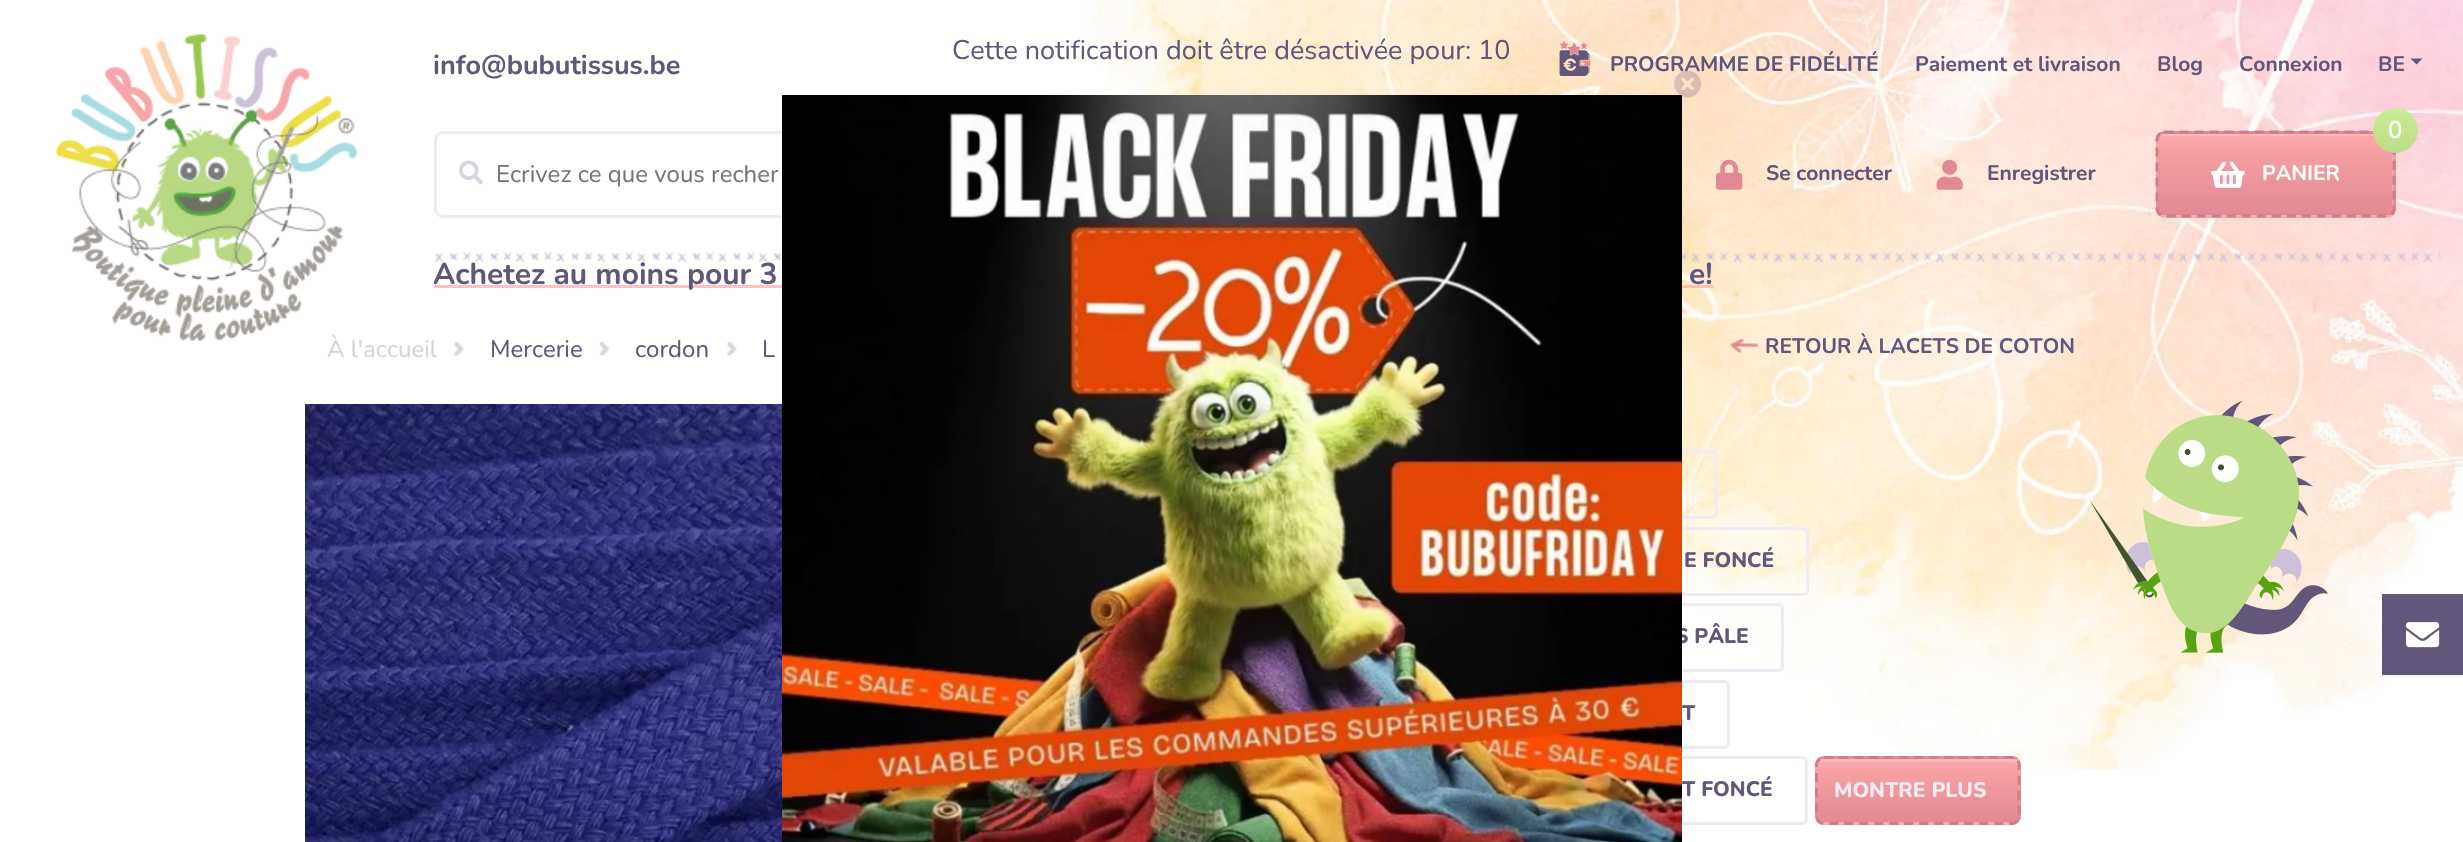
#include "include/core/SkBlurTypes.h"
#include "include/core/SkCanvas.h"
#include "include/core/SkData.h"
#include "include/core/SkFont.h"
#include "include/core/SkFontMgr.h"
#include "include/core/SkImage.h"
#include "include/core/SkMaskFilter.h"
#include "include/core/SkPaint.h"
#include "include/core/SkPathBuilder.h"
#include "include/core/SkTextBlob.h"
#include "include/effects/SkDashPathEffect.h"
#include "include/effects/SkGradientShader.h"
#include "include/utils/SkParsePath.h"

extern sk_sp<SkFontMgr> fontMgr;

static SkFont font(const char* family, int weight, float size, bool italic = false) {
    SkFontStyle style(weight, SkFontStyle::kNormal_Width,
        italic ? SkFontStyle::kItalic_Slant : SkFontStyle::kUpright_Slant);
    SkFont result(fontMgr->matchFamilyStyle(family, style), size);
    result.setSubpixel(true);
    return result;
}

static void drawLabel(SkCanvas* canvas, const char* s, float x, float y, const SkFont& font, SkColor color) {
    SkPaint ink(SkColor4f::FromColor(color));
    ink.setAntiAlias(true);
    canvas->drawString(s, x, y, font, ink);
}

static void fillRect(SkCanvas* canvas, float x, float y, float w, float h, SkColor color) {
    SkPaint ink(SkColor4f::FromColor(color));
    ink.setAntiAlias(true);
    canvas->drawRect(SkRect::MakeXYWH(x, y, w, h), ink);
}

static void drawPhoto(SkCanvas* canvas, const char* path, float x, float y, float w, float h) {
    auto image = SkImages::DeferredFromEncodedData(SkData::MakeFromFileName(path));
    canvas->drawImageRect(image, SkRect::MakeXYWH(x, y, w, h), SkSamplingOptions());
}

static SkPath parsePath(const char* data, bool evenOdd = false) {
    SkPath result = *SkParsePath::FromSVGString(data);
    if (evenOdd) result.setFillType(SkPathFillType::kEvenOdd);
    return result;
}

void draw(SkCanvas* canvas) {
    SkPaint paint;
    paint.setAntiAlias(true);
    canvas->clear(0xFFFFFFFF);
    drawPhoto(canvas, "assets/img1.png", 1039, 0, 1424, 770);
    SkFont font1 = font("Nunito", 400, 27);
    drawLabel(canvas, "Cette notification doit être désactivée pour: 10", 952, 59, font1, 0xFF62567A);
    fillRect(canvas, 434, 285, 1279, 3, 0xB3FFA8A8);
    SkFont font2 = font("Nunito", 700, 30);
    drawLabel(canvas, "Achetez au moins pour 3", 433, 284, font2, 0xFF62567A);
    drawLabel(canvas, "e!", 1689, 284, font2, 0xFF62567A);
    drawPhoto(canvas, "assets/img5.png", 434, 252, 2007, 11);
    paint.setColor(0xFFFFFFFF);
    canvas->drawRoundRect(SkRect::MakeXYWH(435.5f, 132.5f, 837, 84), 7.5f, 7.5f, paint);
    paint.setStroke(true);
    paint.setStrokeWidth(3);
    paint.setColor(0xFFEEEBF4);
    canvas->drawRoundRect(SkRect::MakeXYWH(435.5f, 132.5f, 837, 84), 7.5f, 7.5f, paint);
    canvas->drawRoundRect(SkRect::MakeXYWH(1098.5f, 451.5f, 618, 66), 4.5f, 4.5f, paint);
    canvas->drawRoundRect(SkRect::MakeXYWH(1098.5f, 528.5f, 709, 66), 4.5f, 4.5f, paint);
    canvas->drawRoundRect(SkRect::MakeXYWH(1098.5f, 604.5f, 684, 66), 4.5f, 4.5f, paint);
    SkFont font3 = font("Nunito", 800, 21);
    drawLabel(canvas, "S PÂLE", 1675, 643, font3, 0xFF62567A);
    canvas->drawRoundRect(SkRect::MakeXYWH(1098.5f, 681.5f, 630, 66), 4.5f, 4.5f, paint);
    drawLabel(canvas, "T", 1682, 720, font3, 0xFF62567A);
    canvas->drawRoundRect(SkRect::MakeXYWH(1098.5f, 757.5f, 708, 66), 4.5f, 4.5f, paint);
    drawLabel(canvas, "T FONCÉ", 1682, 796, font3, 0xFF62567A);
    drawPhoto(canvas, "assets/img3.png", 782, 95, 900, 747);
    SkFont font4 = font("Nunito", 700, 21);
    drawLabel(canvas, "PROGRAMME DE FIDÉLITÉ", 1610, 71, font4, 0xFF62567A);
    drawPhoto(canvas, "assets/img2.png", 1674, 71, 27, 27);
    drawPhoto(canvas, "assets/img4.png", 55, 34, 303, 308);
    SkFont font5 = font("Nunito", 700, 27);
    drawLabel(canvas, "info@bubutissus.be", 433, 74, font5, 0xFF62567A);
    drawPhoto(canvas, "assets/img6.png", 1559, 41, 32, 35);
    drawLabel(canvas, "Paiement et livraison", 1915, 71, font4, 0xFF62567A);
    drawLabel(canvas, "Blog", 2157, 71, font4, 0xFF62567A);
    drawLabel(canvas, "Connexion", 2239, 71, font4, 0xFF62567A);
    drawLabel(canvas, "BE", 2378, 71, font4, 0xFF62567A);
    paint.setStroke(false);
    paint.setColor(0xFF62567A);
    canvas->drawPath(parsePath("M2410.5 58.5H2422.5L2416.5 64.5Z"), paint);
    drawPhoto(canvas, "assets/img7.png", 459, 160, 24, 25);
    SkFont font6 = font("Nunito", 400, 24);
    drawLabel(canvas, "Ecrivez ce que vous recher", 496, 182, font6, 0xFF757575);
    drawPhoto(canvas, "assets/img8.png", 1716, 159, 27, 31);
    drawLabel(canvas, "Se connecter", 1766, 180, font4, 0xFF62567A);
    drawPhoto(canvas, "assets/img9.png", 1936, 159, 27, 31);
    drawLabel(canvas, "Enregistrer", 1987, 180, font4, 0xFF62567A);
    canvas->save();
    canvas->clipPath(parsePath("M2165 131H2387C2392 131 2396 135 2396 140V209C2396 214 2392 218 2387 218H2165C2160 218 2156 214 2156 209V140C2156 135 2160 131 2165 131Z"), true);
    {
        const SkColor colors[] = {0xFFE18995, 0xFFF0999F, 0xFFFFA8A8};
        const float stops[] = {0.01f, 0.57f, 1};
        const SkPoint ends[] = {{2276, 134}, {2276, 53}};
        paint.setShader(SkGradientShader::MakeLinear(ends, colors, stops, 3, SkTileMode::kClamp));
        paint.setAlpha(255);
    }
    canvas->drawRect(SkRect::MakeXYWH(2156, 131, 218, 3), paint);
    {
        const SkColor colors[] = {0xFFE18995, 0xFFF0999F, 0xFFFFA8A8};
        const float stops[] = {0.01f, 0.57f, 1};
        const SkPoint ends[] = {{2276, 215}, {2276, 134}};
        paint.setShader(SkGradientShader::MakeLinear(ends, colors, stops, 3, SkTileMode::kClamp));
        paint.setAlpha(255);
    }
    canvas->drawRect(SkRect::MakeXYWH(2156, 134, 240, 81), paint);
    canvas->restore();
    paint.setShader(nullptr);
    paint.setColor(0x30FFFFFF);
    canvas->drawPath(parsePath("M2164 136H2386C2395 136 2392 149 2392 154V212C2393 211 2393 210 2393 209V140C2393 137 2390 134 2387 134H2165C2162 134 2160 136 2159 139C2160 137 2162 136 2164 136Z"), paint);
    canvas->save();
    canvas->clipPath(parsePath("M2165 131H2387C2392 131 2396 135 2396 140V209C2396 214 2392 218 2387 218H2165C2160 218 2156 214 2156 209V140C2156 135 2160 131 2165 131Z"), true);
    {
        const SkColor colors[] = {0xFFE18995, 0xFFF0999F, 0xFFFFA8A8};
        const float stops[] = {0.01f, 0.57f, 1};
        const SkPoint ends[] = {{2276, 296}, {2276, 215}};
        paint.setShader(SkGradientShader::MakeLinear(ends, colors, stops, 3, SkTileMode::kClamp));
        paint.setAlpha(255);
    }
    canvas->drawRect(SkRect::MakeXYWH(2156, 215, 240, 3), paint);
    canvas->restore();
    paint.setStroke(true);
    paint.setShader(nullptr);
    paint.setColor(0xFFCB7E88);
    paint.setPathEffect(SkDashPathEffect::Make({{9, 6}}, 0));
    canvas->drawPath(parsePath("M2164.5 132H2386.5C2390.5 132 2394 135.5 2394 139.5V208.5C2394 212.5 2390.5 216 2386.5 216H2164.5C2160.5 216 2157 212.5 2157 208.5V139.5C2157 135.5 2160.5 132 2164.5 132Z"), paint);
    paint.setPathEffect(nullptr);
    paint.setStroke(false);
    {
        const SkColor colors[] = {0xFFBCDC87, 0xFFC4E490, 0xFFCCEC98};
        const float stops[] = {0.01f, 0.58f, 1};
        const SkPoint ends[] = {{2396, 153}, {2396, 108}};
        paint.setShader(SkGradientShader::MakeLinear(ends, colors, stops, 3, SkTileMode::kClamp));
        paint.setAlpha(255);
    }
    canvas->drawCircle(2395.5f, 130.5f, 22.5f, paint);
    SkFont font7 = font("Nunito", 600, 24);
    drawLabel(canvas, "0", 2388, 138, font7, 0xFFFFFFFF);
    drawPhoto(canvas, "assets/img10.png", 2211, 161, 34, 27);
    drawLabel(canvas, "PANIER", 2262, 180, font4, 0xFFFFFFFF);
    drawLabel(canvas, "À l'accueil", 327, 357, font6, 0xFFD8D2DB);
    drawPhoto(canvas, "assets/img11.png", 454, 341, 10, 16);
    drawLabel(canvas, "Mercerie", 490, 357, font6, 0xFF62567A);
    drawPhoto(canvas, "assets/img12.png", 599, 341, 11, 16);
    drawLabel(canvas, "cordon", 635, 357, font6, 0xFF62567A);
    drawPhoto(canvas, "assets/img11.png", 727, 341, 10, 16);
    drawLabel(canvas, "L", 762, 357, font6, 0xFF62567A);
    drawPhoto(canvas, "assets/img13.png", 1729, 338, 30, 15);
    drawLabel(canvas, "RETOUR À LACETS DE COTON", 1765, 353, font4, 0xFF62567A);
    drawPhoto(canvas, "assets/img14.png", 305, 404, 477, 438);
    drawLabel(canvas, "E FONCÉ", 1684, 567, font3, 0xFF62567A);
    canvas->save();
    canvas->clipPath(parsePath("M1824 756H2012C2017 756 2021 760 2021 765V816C2021 821 2017 825 2012 825H1824C1819 825 1815 821 1815 816V765C1815 760 1819 756 1824 756Z"), true);
    {
        const SkColor colors[] = {0xFFE18995, 0xFFF0999F, 0xFFFFA8A8};
        const float stops[] = {0.01f, 0.57f, 1};
        const SkPoint ends[] = {{1918, 759}, {1918, 696}};
        paint.setShader(SkGradientShader::MakeLinear(ends, colors, stops, 3, SkTileMode::kClamp));
        paint.setAlpha(255);
    }
    canvas->drawRect(SkRect::MakeXYWH(1815, 756, 206, 3), paint);
    {
        const SkColor colors[] = {0xFFE18995, 0xFFF0999F, 0xFFFFA8A8};
        const float stops[] = {0.01f, 0.57f, 1};
        const SkPoint ends[] = {{1918, 822}, {1918, 759}};
        paint.setShader(SkGradientShader::MakeLinear(ends, colors, stops, 3, SkTileMode::kClamp));
        paint.setAlpha(255);
    }
    canvas->drawRect(SkRect::MakeXYWH(1815, 759, 206, 63), paint);
    {
        const SkColor colors[] = {0xFFE18995, 0xFFF0999F, 0xFFFFA8A8};
        const float stops[] = {0.01f, 0.57f, 1};
        const SkPoint ends[] = {{1918, 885}, {1918, 822}};
        paint.setShader(SkGradientShader::MakeLinear(ends, colors, stops, 3, SkTileMode::kClamp));
        paint.setAlpha(255);
    }
    canvas->drawRect(SkRect::MakeXYWH(1815, 822, 206, 3), paint);
    canvas->restore();
    paint.setShader(nullptr);
    paint.setColor(0x30FFFFFF);
    canvas->drawPath(parsePath("M1824 762H2012C2015 762 2018 765 2018 768V765C2018 762 2015 759 2012 759H1824C1821 759 1818 762 1818 765V768C1818 765 1821 762 1824 762Z"), paint);
    paint.setStroke(true);
    paint.setColor(0xFFCB7E88);
    paint.setPathEffect(SkDashPathEffect::Make({{9, 6}}, 0));
    canvas->drawPath(parsePath("M1824 757.5H2011.5C2015.5 757.5 2019 761 2019 765V816C2019 820 2015.5 823.5 2011.5 823.5H1824C1820 823.5 1816.5 820 1816.5 816V765C1816.5 761 1820 757.5 1824 757.5Z"), paint);
    paint.setPathEffect(nullptr);
    drawLabel(canvas, "MONTRE PLUS", 1834, 797, font3, 0xFFEEEBF4);
    drawPhoto(canvas, "assets/img15.png", 2090, 400, 238, 253);
    drawPhoto(canvas, "assets/img16.png", 2382, 594, 81, 81);
}
